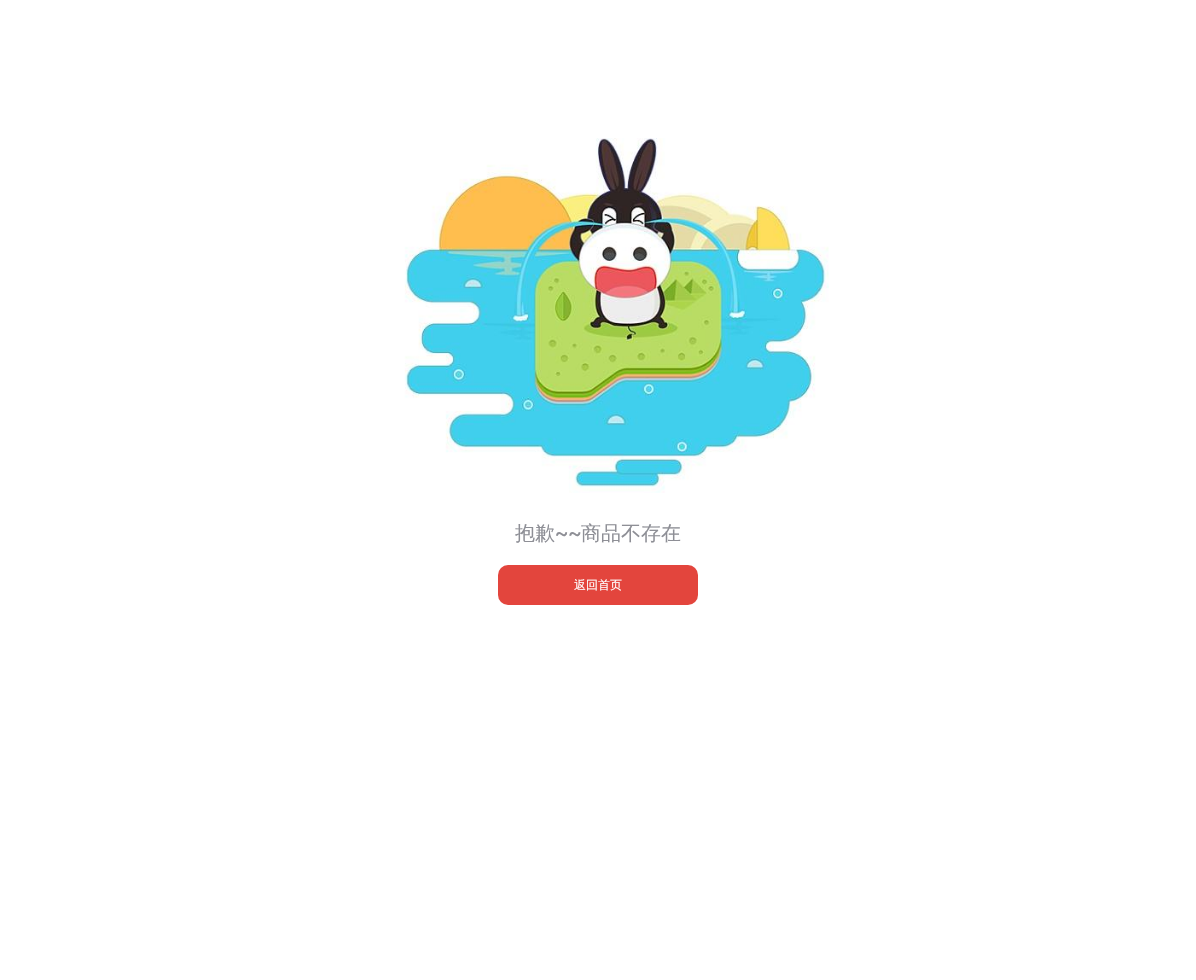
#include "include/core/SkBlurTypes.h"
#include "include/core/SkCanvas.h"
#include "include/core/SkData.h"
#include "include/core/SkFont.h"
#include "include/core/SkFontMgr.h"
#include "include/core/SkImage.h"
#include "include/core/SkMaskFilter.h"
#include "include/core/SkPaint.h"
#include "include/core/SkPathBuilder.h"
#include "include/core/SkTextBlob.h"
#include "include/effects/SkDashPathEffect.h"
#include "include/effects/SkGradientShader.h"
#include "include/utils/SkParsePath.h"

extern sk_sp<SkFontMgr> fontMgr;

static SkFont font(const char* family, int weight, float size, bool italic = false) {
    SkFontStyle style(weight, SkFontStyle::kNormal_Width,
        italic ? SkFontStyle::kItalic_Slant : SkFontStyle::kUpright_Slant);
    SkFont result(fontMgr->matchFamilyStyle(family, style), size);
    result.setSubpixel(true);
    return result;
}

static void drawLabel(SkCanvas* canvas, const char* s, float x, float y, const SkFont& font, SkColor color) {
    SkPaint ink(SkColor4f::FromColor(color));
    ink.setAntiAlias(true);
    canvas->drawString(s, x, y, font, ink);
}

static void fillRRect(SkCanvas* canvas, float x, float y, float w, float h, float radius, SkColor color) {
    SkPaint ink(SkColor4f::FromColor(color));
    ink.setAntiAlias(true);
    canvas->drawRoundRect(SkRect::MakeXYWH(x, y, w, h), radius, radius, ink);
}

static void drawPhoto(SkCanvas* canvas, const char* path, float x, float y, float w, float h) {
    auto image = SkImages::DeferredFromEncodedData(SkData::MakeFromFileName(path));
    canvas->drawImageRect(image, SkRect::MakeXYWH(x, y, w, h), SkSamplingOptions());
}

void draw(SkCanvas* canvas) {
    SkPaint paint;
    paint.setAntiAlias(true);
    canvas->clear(0xFFFFFFFF);
    drawPhoto(canvas, "assets/img1.png", 404, 138, 425, 355);
    SkFont font1 = font("WenQuanYi Zen Hei", 500, 20);
    drawLabel(canvas, "抱歉", 515, 540, font1, 0xFF8E8F96);
    SkFont font2 = font("Roboto", 500, 20);
    drawLabel(canvas, "~~", 555, 540, font2, 0xFF8E8F96);
    drawLabel(canvas, "商品不存在", 581, 540, font1, 0xFF8E8F96);
    fillRRect(canvas, 498, 565, 200, 40, 10, 0xFFE3453D);
    SkFont font3 = font("WenQuanYi Zen Hei", 500, 12);
    drawLabel(canvas, "返回首页", 574, 589, font3, 0xFFFFFFFF);
}
